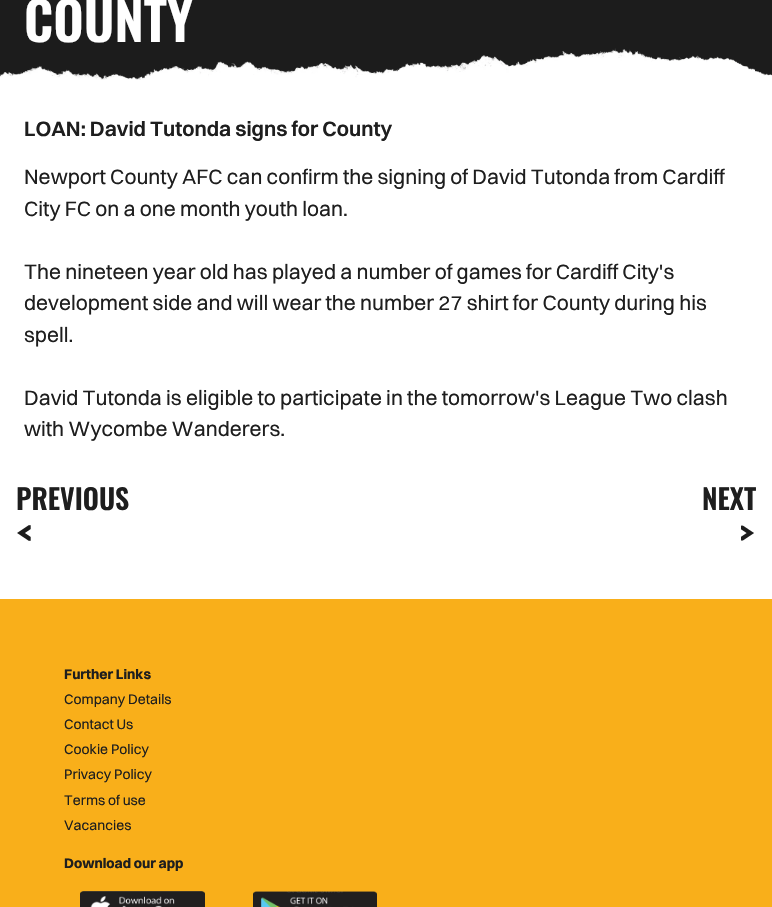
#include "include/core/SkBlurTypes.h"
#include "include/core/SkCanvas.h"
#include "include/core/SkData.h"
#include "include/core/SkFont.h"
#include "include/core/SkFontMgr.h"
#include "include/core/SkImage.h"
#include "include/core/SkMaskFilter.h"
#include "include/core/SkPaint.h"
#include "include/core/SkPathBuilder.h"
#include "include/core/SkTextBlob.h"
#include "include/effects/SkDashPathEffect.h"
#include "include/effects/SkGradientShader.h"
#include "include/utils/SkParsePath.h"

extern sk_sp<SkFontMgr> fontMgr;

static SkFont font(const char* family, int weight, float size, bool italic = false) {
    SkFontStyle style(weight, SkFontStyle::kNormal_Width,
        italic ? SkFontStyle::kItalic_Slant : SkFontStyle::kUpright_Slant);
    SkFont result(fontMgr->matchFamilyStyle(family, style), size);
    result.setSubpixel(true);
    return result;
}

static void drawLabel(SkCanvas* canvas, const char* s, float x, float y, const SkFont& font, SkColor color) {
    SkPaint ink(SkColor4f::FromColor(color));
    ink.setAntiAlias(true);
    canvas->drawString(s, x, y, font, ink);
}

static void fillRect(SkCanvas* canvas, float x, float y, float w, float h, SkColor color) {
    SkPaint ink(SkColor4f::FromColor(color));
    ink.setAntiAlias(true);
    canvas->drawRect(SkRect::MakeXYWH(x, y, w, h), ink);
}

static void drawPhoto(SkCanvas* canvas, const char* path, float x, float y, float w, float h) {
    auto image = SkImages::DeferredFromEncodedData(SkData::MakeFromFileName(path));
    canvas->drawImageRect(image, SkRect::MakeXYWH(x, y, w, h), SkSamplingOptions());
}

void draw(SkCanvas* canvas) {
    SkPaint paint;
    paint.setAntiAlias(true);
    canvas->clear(0xFFFFFFFF);
    fillRect(canvas, 0, 0, 772, 80, 0xFF1C1C1C);
    SkFont font1 = font("Oswald", 600, 53);
    drawLabel(canvas, "COUNTY", 24, 42, font1, 0xFFFFFFFF);
    drawPhoto(canvas, "assets/img1.png", 0, 48, 772, 32);
    SkFont font2 = font("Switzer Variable", 600, 21);
    drawLabel(canvas, "LOAN: David Tutonda signs for County", 24, 136, font2, 0xFF1E1E1E);
    SkFont font3 = font("Switzer Variable", 400, 21);
    drawLabel(canvas, "Newport County AFC can confirm the signing of David Tutonda from Cardiff", 24, 184, font3, 0xFF1E1E1E);
    drawLabel(canvas, "City FC on a one month youth loan.", 24, 216, font3, 0xFF1E1E1E);
    drawLabel(canvas, "The nineteen year old has played a number of games for Cardiff City's", 24, 279, font3, 0xFF1E1E1E);
    drawLabel(canvas, "development side and will wear the number 27 shirt for County during his", 24, 310, font3, 0xFF1E1E1E);
    drawLabel(canvas, "spell.", 24, 342, font3, 0xFF1E1E1E);
    drawLabel(canvas, "David Tutonda is eligible to participate in the tomorrow's League Two clash", 24, 405, font3, 0xFF1E1E1E);
    drawLabel(canvas, "with Wycombe Wanderers.", 24, 436, font3, 0xFF1E1E1E);
    SkFont font4 = font("Oswald", 600, 28);
    drawLabel(canvas, "PREVIOUS", 16, 510, font4, 0xFF1E1E1E);
    drawPhoto(canvas, "assets/img2.png", 17, 525, 14, 16);
    drawLabel(canvas, "NEXT", 702, 510, font4, 0xFF1E1E1E);
    drawPhoto(canvas, "assets/img3.png", 741, 525, 13, 16);
    fillRect(canvas, 0, 599, 772, 308, 0xFFF9AF1A);
    SkFont font5 = font("Switzer Variable", 700, 14);
    drawLabel(canvas, "Further Links", 64, 679, font5, 0xFF1E1E1E);
    SkFont font6 = font("Switzer Variable", 400, 14);
    drawLabel(canvas, "Company Details", 64, 704, font6, 0xFF1E1E1E);
    drawLabel(canvas, "Contact Us", 64, 729, font6, 0xFF1E1E1E);
    drawLabel(canvas, "Cookie Policy", 64, 754, font6, 0xFF1E1E1E);
    drawLabel(canvas, "Privacy Policy", 64, 779, font6, 0xFF1E1E1E);
    drawLabel(canvas, "Terms of use", 64, 805, font6, 0xFF1E1E1E);
    drawLabel(canvas, "Vacancies", 64, 830, font6, 0xFF1E1E1E);
    drawLabel(canvas, "Download our app", 64, 868, font5, 0xFF1E1E1E);
    drawPhoto(canvas, "assets/img4.png", 80, 891, 125, 16);
    drawPhoto(canvas, "assets/img5.png", 253, 891, 124, 16);
}
